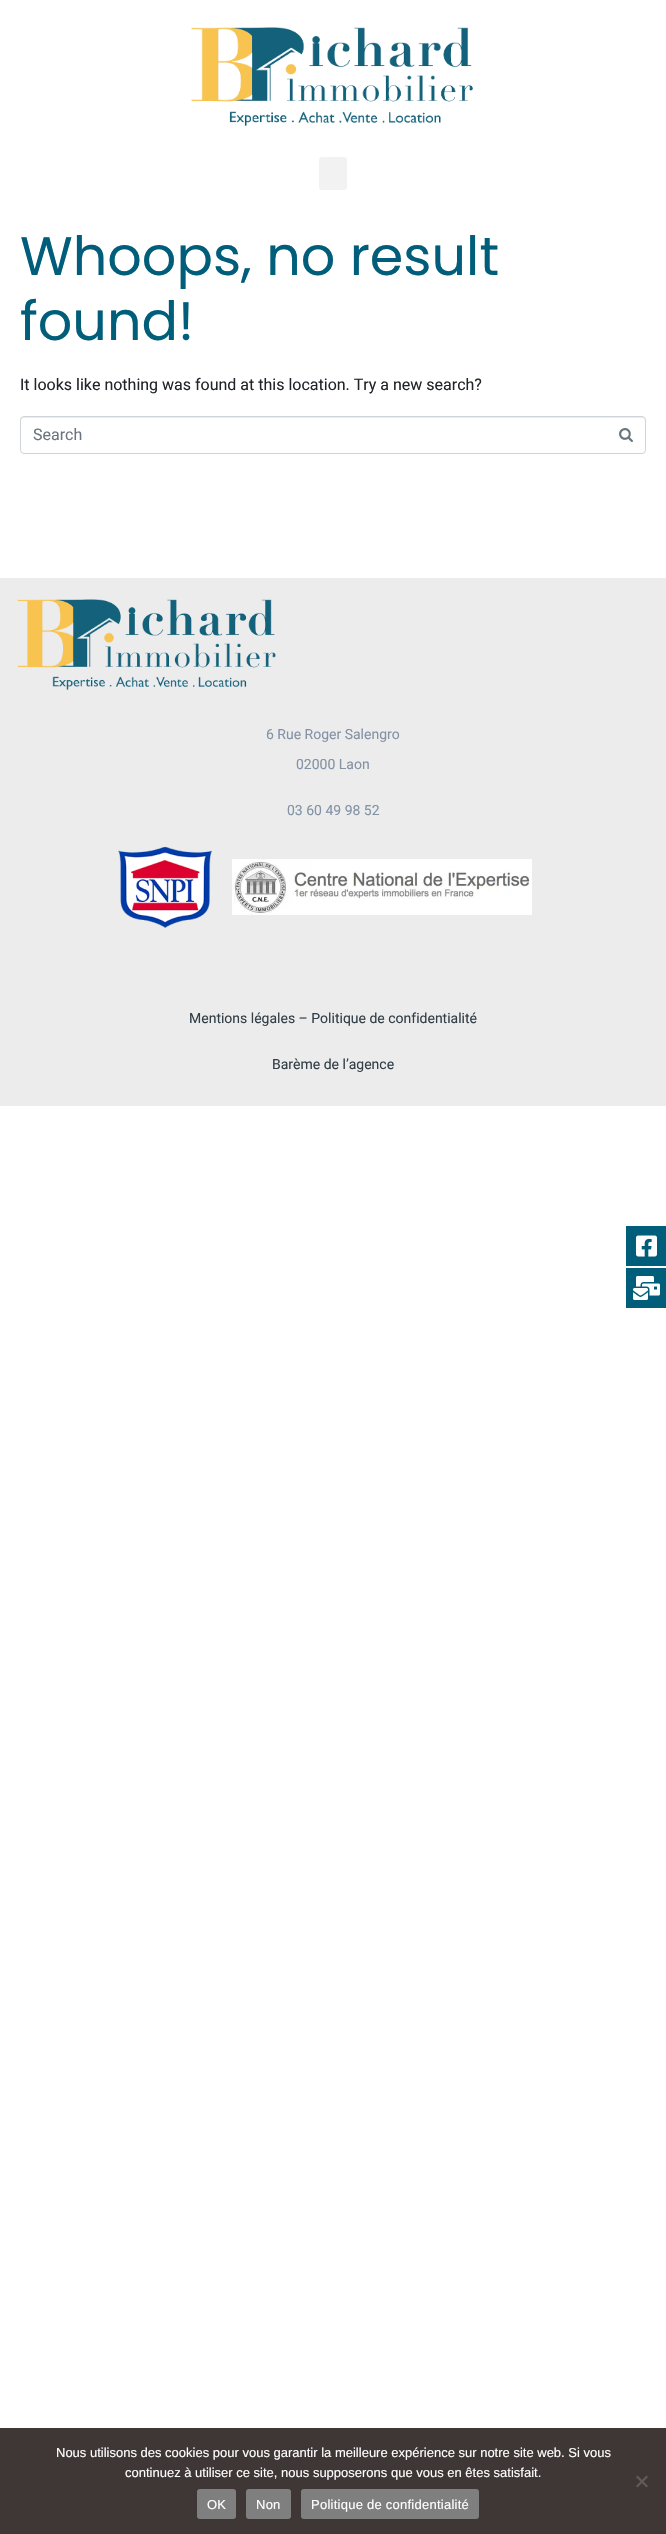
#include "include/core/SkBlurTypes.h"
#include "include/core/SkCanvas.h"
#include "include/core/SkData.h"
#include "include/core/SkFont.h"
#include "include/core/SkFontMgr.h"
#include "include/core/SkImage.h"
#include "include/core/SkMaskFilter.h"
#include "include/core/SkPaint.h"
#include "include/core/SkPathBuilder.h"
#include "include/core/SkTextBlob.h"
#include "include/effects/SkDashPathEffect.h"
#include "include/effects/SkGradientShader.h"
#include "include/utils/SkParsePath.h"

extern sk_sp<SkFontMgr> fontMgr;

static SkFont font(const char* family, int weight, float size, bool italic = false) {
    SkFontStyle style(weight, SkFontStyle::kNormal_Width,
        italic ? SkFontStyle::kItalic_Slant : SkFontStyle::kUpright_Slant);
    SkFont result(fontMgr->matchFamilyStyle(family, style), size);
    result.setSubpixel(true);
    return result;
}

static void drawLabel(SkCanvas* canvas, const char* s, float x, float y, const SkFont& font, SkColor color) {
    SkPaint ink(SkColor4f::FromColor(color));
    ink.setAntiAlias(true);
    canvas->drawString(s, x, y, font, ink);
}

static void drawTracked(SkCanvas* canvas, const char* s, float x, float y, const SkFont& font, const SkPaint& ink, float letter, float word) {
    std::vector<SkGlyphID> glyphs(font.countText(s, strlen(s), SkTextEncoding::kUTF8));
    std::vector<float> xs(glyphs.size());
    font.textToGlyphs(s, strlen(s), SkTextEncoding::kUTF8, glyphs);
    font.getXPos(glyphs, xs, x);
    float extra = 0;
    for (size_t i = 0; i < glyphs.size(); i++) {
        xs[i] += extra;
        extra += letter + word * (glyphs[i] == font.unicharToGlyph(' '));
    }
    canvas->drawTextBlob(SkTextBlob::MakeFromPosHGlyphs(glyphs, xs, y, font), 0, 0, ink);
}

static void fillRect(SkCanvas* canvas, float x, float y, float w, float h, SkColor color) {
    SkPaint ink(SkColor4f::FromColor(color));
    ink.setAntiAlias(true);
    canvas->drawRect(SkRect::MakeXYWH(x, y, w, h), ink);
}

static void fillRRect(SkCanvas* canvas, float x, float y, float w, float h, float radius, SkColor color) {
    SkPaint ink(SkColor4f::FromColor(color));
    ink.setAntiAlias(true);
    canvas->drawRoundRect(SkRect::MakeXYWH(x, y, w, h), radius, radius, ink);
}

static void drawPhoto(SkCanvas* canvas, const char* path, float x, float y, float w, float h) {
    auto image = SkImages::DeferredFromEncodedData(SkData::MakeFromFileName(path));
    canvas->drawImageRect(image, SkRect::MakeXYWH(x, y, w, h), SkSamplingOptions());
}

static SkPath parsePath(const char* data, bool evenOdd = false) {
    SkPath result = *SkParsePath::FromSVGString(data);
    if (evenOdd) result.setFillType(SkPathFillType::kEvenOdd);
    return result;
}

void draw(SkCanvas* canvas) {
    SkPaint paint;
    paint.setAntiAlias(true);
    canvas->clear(0xFFFFFFFF);
    drawPhoto(canvas, "assets/img1.png", 191, 27, 282, 99);
    fillRRect(canvas, 319, 157, 28, 33, 3, 0xFFF2F2F2);
    SkFont font1 = font("Poppins", 400, 54);
    drawLabel(canvas, "Whoops, no result", 20, 275, font1, 0xFF005E7A);
    drawLabel(canvas, "found!", 20, 340, font1, 0xFF005E7A);
    SkFont font2 = font("Roboto", 400, 16);
    drawLabel(canvas, "It looks like nothing was found at this location. Try a new search?", 20, 390, font2, 0xFF212529);
    paint.setColor(0xFFECECEC);
    canvas->drawPath(parsePath("M24 418H642C644 418 645 419 645 421V420C645 418 644 417 642 417H24C22 417 21 418 21 420V421C21 419 22 418 24 418Z"), paint);
    paint.setStroke(true);
    paint.setStrokeWidth(1);
    paint.setColor(0xFFCED4DA);
    canvas->drawRoundRect(SkRect::MakeXYWH(20.5f, 416.5f, 625, 37), 3.5f, 3.5f, paint);
    drawLabel(canvas, "Search", 33, 440, font2, 0xFF6C757D);
    drawPhoto(canvas, "assets/img2.png", 619, 428, 14, 15);
    fillRect(canvas, 0, 578, 666, 528, 0xFFECECEC);
    drawPhoto(canvas, "assets/img3.png", 17, 599, 259, 91);
    SkFont font3 = font("Roboto", 400, 14);
    drawLabel(canvas, "6 Rue Roger Salengro", 266, 739, font3, 0xFF8392A5);
    drawLabel(canvas, "02000 Laon", 296, 769, font3, 0xFF8392A5);
    drawLabel(canvas, "03 60 49 98 52", 287, 815, font3, 0xFF8392A5);
    drawPhoto(canvas, "assets/img4.png", 118, 847, 94, 81);
    drawPhoto(canvas, "assets/img5.png", 232, 859, 300, 56);
    drawLabel(canvas, "Mentions légales – Politique de confidentialité", 189, 1023, font3, 0xFF333F48);
    drawLabel(canvas, "Barème de l’agence", 272, 1069, font3, 0xFF333F48);
    fillRect(canvas, 626, 1226, 40, 40, 0xFF005E7A);
    drawPhoto(canvas, "assets/img6.png", 636, 1235, 21, 22);
    fillRect(canvas, 626, 1268, 40, 40, 0xFF005E7A);
    drawPhoto(canvas, "assets/img7.png", 633, 1276, 27, 24);
    fillRect(canvas, 0, 2428, 666, 106, 0xFF3F3636);
    SkFont font4 = font("Liberation Sans", 400, 13);
    drawLabel(canvas, "Nous utilisons des cookies pour vous garantir la meilleure expérience sur notre site web. Si vous", 56, 2457, font4, 0xFFFFFFFF);
    drawLabel(canvas, "continuez à utiliser ce site, nous supposerons que vous en êtes satisfait.", 125, 2477, font4, 0xFFFFFFFF);
    paint.setStroke(false);
    paint.setColor(0xFF605B5B);
    canvas->drawPath(parsePath("M646.5 2475.5L648 2477L637.5 2487.5L636 2486Z"), paint);
    canvas->drawPath(parsePath("M636 2477L637.5 2475.5L648 2486L646.5 2487.5Z"), paint);
    fillRRect(canvas, 197, 2489, 39, 30, 3, 0xFF7F7F7F);
    paint.setColor(0xFFFFFFFF);
    drawTracked(canvas, "OK", 207, 2509, font4, paint, 0.25f, 0);
    fillRRect(canvas, 246, 2489, 45, 30, 3, 0xFF7F7F7F);
    drawTracked(canvas, "Non", 256, 2509, font4, paint, 0.25f, 0);
    fillRRect(canvas, 301, 2489, 178, 30, 3, 0xFF7F7F7F);
    drawTracked(canvas, "Politique de confidentialité", 311, 2509, font4, paint, 0.25f, 0);
}
